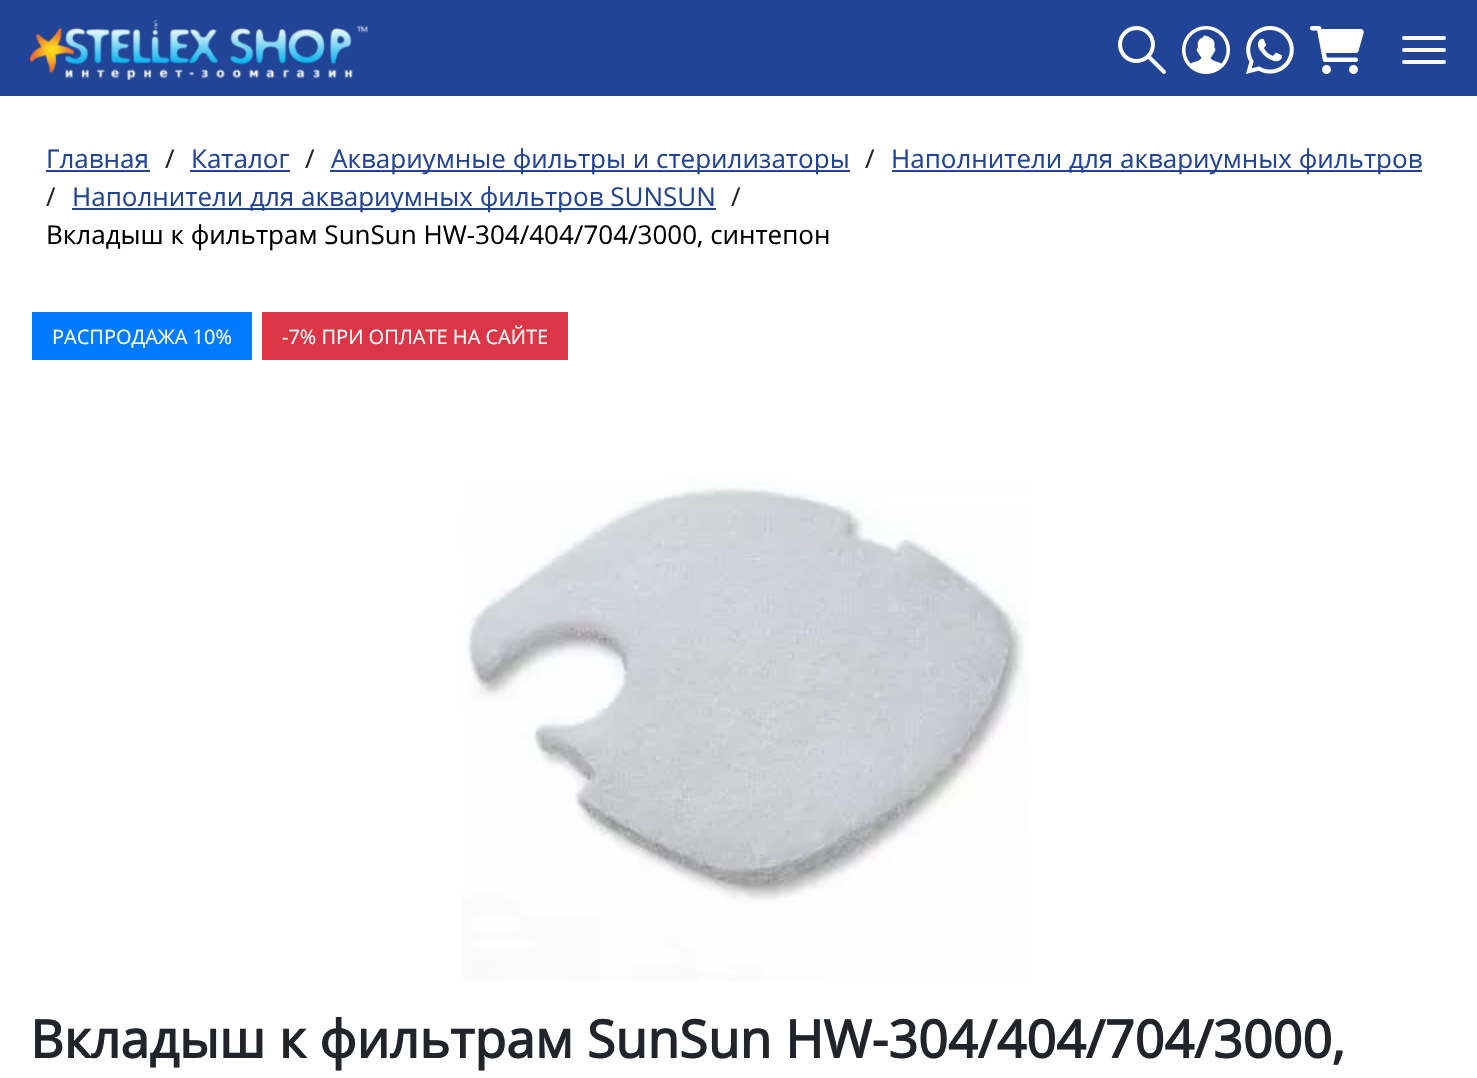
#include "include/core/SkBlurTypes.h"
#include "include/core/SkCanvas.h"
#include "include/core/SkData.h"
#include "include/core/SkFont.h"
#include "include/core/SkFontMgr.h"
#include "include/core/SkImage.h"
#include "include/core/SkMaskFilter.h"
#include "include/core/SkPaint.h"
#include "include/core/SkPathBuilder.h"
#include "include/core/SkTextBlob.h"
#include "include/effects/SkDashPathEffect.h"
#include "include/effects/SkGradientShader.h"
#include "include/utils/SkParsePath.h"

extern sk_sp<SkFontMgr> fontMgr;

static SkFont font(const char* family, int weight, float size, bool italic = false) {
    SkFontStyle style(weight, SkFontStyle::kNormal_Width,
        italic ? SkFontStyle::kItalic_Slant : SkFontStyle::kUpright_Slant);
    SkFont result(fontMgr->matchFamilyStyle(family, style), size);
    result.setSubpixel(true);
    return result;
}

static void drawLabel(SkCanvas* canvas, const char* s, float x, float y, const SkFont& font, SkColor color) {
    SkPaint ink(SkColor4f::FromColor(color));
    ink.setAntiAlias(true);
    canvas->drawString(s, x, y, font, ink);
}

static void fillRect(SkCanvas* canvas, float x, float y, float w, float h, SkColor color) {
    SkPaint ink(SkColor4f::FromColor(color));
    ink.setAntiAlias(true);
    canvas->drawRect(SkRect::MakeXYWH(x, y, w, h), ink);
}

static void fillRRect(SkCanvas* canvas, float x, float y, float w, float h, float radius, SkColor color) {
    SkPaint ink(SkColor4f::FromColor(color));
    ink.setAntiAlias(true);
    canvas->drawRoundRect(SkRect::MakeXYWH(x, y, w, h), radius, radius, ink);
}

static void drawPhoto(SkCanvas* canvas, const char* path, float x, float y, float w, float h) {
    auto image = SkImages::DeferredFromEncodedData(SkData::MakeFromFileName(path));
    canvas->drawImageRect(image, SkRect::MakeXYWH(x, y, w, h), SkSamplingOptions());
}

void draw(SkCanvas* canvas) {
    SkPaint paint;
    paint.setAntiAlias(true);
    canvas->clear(0xFFFFFFFF);
    fillRect(canvas, 0, 0, 1477, 96, 0xFF214496);
    drawPhoto(canvas, "assets/img1.png", 30, 20, 338, 60);
    drawPhoto(canvas, "assets/img2.png", 1118, 26, 48, 48);
    drawPhoto(canvas, "assets/img3.png", 1182, 26, 48, 48);
    drawPhoto(canvas, "assets/img4.png", 1246, 26, 48, 48);
    drawPhoto(canvas, "assets/img5.png", 1310, 26, 54, 48);
    fillRRect(canvas, 1402, 48, 44, 4, 2, 0xFFFFFFFF);
    fillRRect(canvas, 1402, 36, 44, 4, 2, 0xFFFFFFFF);
    fillRRect(canvas, 1402, 60, 44, 4, 2, 0xFFFFFFFF);
    SkFont font1 = font("Open Sans", 400, 26);
    drawLabel(canvas, "Главная", 46, 168, font1, 0xFF214496);
    fillRect(canvas, 46, 170, 104, 2, 0xFF214496);
    drawLabel(canvas, "/", 165, 168, font1, 0xFF212529);
    drawLabel(canvas, "Каталог", 191, 168, font1, 0xFF214496);
    fillRect(canvas, 190, 170, 100, 2, 0xFF214496);
    drawLabel(canvas, "/", 305, 168, font1, 0xFF212529);
    fillRect(canvas, 330, 170, 520, 2, 0xFF214496);
    drawLabel(canvas, "Аквариумные фильтры и стерилизаторы", 331, 168, font1, 0xFF214496);
    drawLabel(canvas, "/", 865, 168, font1, 0xFF212529);
    fillRect(canvas, 892, 170, 530, 2, 0xFF214496);
    drawLabel(canvas, "Наполнители для аквариумных фильтров", 891, 168, font1, 0xFF214496);
    drawLabel(canvas, "/", 46, 206, font1, 0xFF212529);
    fillRect(canvas, 72, 208, 644, 2, 0xFF214496);
    drawLabel(canvas, "Наполнители для аквариумных фильтров SUNSUN", 72, 206, font1, 0xFF214496);
    drawLabel(canvas, "/", 731, 206, font1, 0xFF212529);
    drawLabel(canvas, "Вкладыш к фильтрам SunSun HW-304/404/704/3000, синтепон", 46, 244, font1, 0xFF000000);
    fillRect(canvas, 32, 312, 220, 48, 0xFF007BFF);
    SkFont font2 = font("Open Sans", 400, 20);
    drawLabel(canvas, "РАСПРОДАЖА 10%", 52, 344, font2, 0xFFFFFFFF);
    fillRect(canvas, 262, 312, 306, 48, 0xFFDC3545);
    drawLabel(canvas, "-7% ПРИ ОПЛАТЕ НА САЙТЕ", 282, 344, font2, 0xFFFFFFFF);
    drawPhoto(canvas, "assets/img6.png", 463, 479, 566, 502);
    SkFont font3 = font("Open Sans", 700, 52);
    drawLabel(canvas, "Вкладыш к фильтрам SunSun HW-304/404/704/3000,", 30, 1058, font3, 0xFF212529);
}
